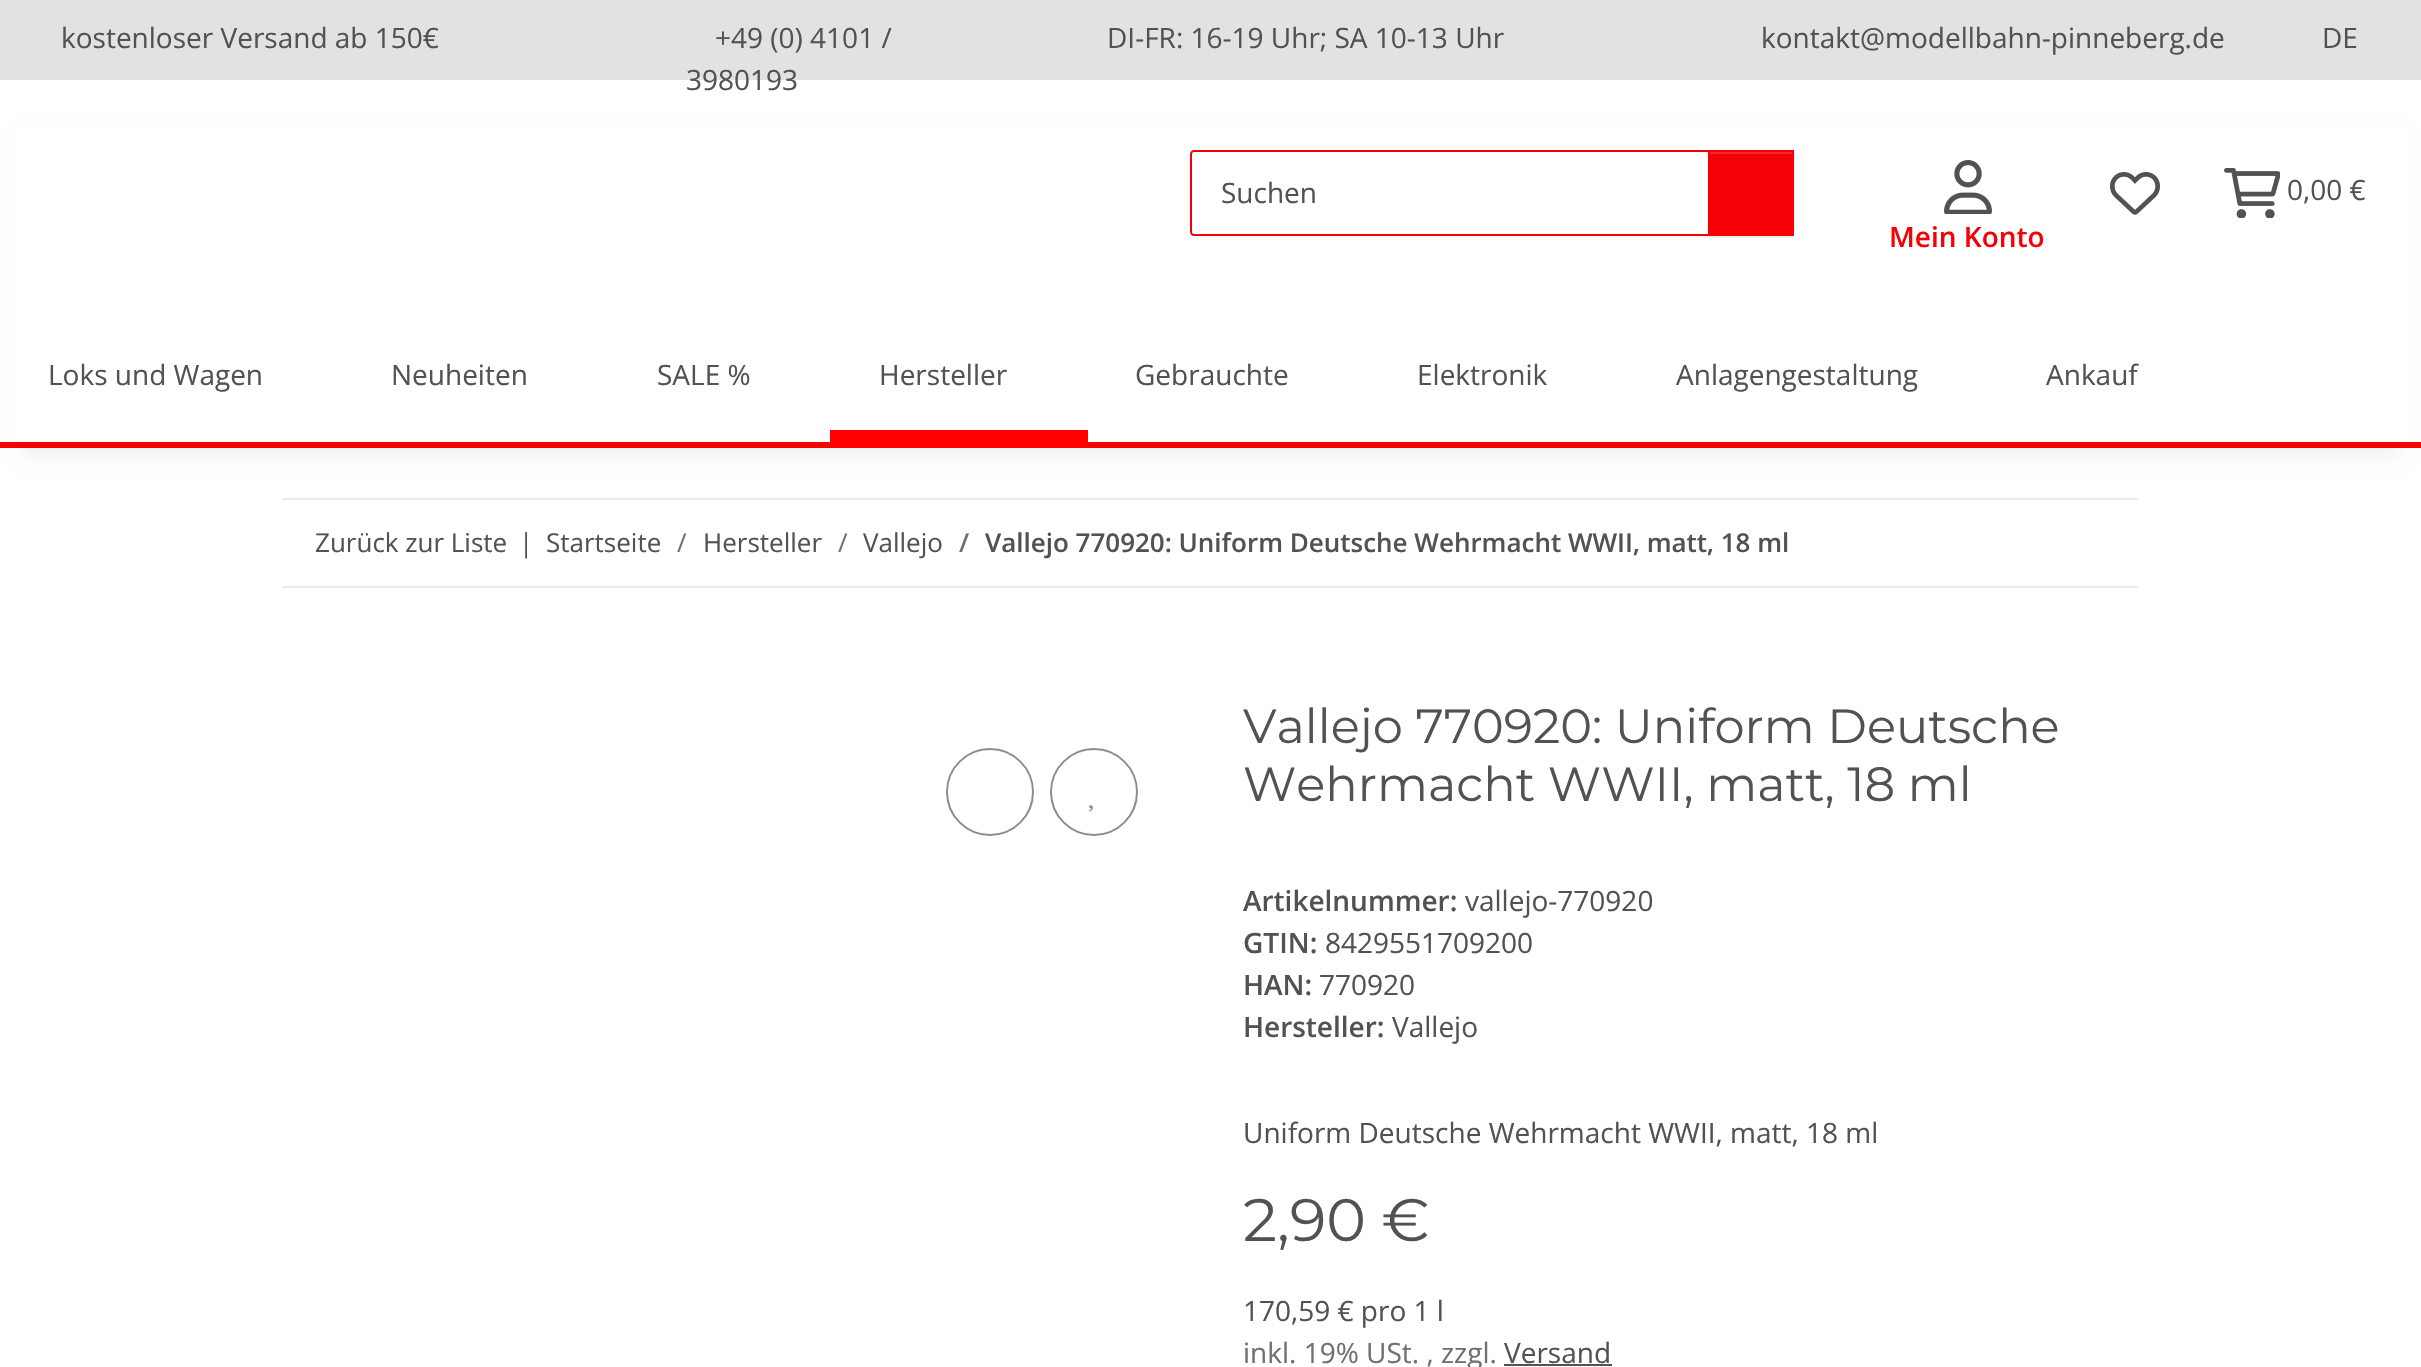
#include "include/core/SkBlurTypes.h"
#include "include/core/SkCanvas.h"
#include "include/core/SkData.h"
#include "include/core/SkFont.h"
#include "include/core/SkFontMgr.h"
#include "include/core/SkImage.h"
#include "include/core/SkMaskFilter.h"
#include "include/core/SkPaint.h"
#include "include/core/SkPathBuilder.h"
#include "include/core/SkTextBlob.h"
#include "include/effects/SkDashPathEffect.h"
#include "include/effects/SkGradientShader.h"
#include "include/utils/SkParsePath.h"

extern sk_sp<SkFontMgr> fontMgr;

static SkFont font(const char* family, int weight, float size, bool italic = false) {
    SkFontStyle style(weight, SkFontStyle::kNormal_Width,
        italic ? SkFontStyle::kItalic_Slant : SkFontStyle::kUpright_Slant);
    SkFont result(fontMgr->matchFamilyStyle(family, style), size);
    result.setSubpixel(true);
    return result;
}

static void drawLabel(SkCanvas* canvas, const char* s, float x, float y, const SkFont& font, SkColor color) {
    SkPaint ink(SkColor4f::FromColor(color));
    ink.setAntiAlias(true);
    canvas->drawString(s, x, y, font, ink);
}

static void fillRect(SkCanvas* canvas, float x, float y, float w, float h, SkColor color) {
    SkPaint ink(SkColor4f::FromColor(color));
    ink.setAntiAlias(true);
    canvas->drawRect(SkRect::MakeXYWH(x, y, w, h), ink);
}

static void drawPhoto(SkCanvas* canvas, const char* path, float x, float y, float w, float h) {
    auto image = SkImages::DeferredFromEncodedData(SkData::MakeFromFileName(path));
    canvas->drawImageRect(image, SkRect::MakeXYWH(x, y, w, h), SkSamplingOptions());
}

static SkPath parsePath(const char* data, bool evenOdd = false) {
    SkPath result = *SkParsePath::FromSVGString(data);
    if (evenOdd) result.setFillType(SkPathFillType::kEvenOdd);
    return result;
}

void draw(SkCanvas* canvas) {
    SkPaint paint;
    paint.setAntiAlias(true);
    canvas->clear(0xFFFFFFFF);
    fillRect(canvas, 0, 0, 2421, 80, 0xFFE2E2E2);
    SkFont font1 = font("Open Sans", 400, 28);
    drawLabel(canvas, "kostenloser Versand ab 150€", 61, 48, font1, 0xFF525252);
    drawLabel(canvas, "+49 (0) 4101 /", 715, 48, font1, 0xFF525252);
    drawLabel(canvas, "3980193", 686, 90, font1, 0xFF525252);
    drawLabel(canvas, "DI-FR: 16-19 Uhr; SA 10-13 Uhr", 1107, 48, font1, 0xFF525252);
    drawLabel(canvas, "kontakt@modellbahn-pinneberg.de", 1761, 48, font1, 0xFF525252);
    drawLabel(canvas, "DE", 2322, 48, font1, 0xFF525252);
    paint.setColor(0x0F000000);
    paint.setMaskFilter(SkMaskFilter::MakeBlur(kNormal_SkBlurStyle, 9));
    canvas->drawRect(SkRect::MakeXYWH(24, 136, 2374, 320), paint);
    paint.setMaskFilter(nullptr);
    fillRect(canvas, 15, 127, 2392, 315, 0xFFFFFFFF);
    fillRect(canvas, 0, 442, 2421, 6, 0xFFFF0000);
    paint.setStroke(true);
    paint.setStrokeWidth(2);
    paint.setColor(0xFFF40006);
    canvas->drawPath(parsePath("M1194 151H1709V235H1194C1192.5 235 1191 233.5 1191 232V154C1191 152.5 1192.5 151 1194 151Z"), paint);
    drawLabel(canvas, "Suchen", 1221, 203, font1, 0xFF525252);
    paint.setStroke(false);
    paint.setColor(0x12000000);
    paint.setMaskFilter(SkMaskFilter::MakeBlur(kNormal_SkBlurStyle, 1));
    canvas->drawRect(SkRect::MakeXYWH(1708, 152, 86, 86), paint);
    paint.setMaskFilter(nullptr);
    fillRect(canvas, 1708, 150, 86, 86, 0xFFF40006);
    fillRect(canvas, 1710, 152, 82, 2, 0xFFF6262B);
    drawPhoto(canvas, "assets/img1.png", 2110, 172, 50, 43);
    drawPhoto(canvas, "assets/img2.png", 2224, 168, 56, 50);
    drawLabel(canvas, "0,00 €", 2287, 200, font1, 0xFF525252);
    drawPhoto(canvas, "assets/img3.png", 1944, 160, 48, 54);
    SkFont font2 = font("Open Sans", 600, 28);
    drawLabel(canvas, "Mein Konto", 1889, 247, font2, 0xFFF40006);
    drawLabel(canvas, "Loks und Wagen", 48, 385, font1, 0xFF525252);
    drawLabel(canvas, "Neuheiten", 391, 385, font1, 0xFF525252);
    drawLabel(canvas, "SALE %", 657, 385, font1, 0xFF525252);
    drawLabel(canvas, "Hersteller", 879, 385, font1, 0xFF525252);
    fillRect(canvas, 830, 430, 258, 12, 0xFFFF0000);
    drawLabel(canvas, "Gebrauchte", 1135, 385, font1, 0xFF525252);
    drawLabel(canvas, "Elektronik", 1417, 385, font1, 0xFF525252);
    drawLabel(canvas, "Anlagengestaltung", 1676, 385, font1, 0xFF525252);
    drawLabel(canvas, "Ankauf", 2046, 385, font1, 0xFF525252);
    fillRect(canvas, 282, 498, 1856, 2, 0xFFEBEBEB);
    fillRect(canvas, 282, 586, 1856, 2, 0xFFEBEBEB);
    SkFont font3 = font("Open Sans", 400, 26);
    drawLabel(canvas, "Zurück zur Liste", 315, 552, font3, 0xFF525252);
    drawLabel(canvas, "|", 519, 552, font3, 0xFF525252);
    drawLabel(canvas, "Startseite", 546, 552, font3, 0xFF525252);
    drawLabel(canvas, "/", 677, 552, font3, 0xFF707070);
    drawLabel(canvas, "Hersteller", 703, 552, font3, 0xFF525252);
    drawLabel(canvas, "/", 838, 552, font3, 0xFF707070);
    drawLabel(canvas, "Vallejo", 863, 552, font3, 0xFF525252);
    SkFont font4 = font("Open Sans", 600, 26);
    drawLabel(canvas, "/", 959, 552, font4, 0xFF707070);
    drawLabel(canvas, "Vallejo 770920: Uniform Deutsche Wehrmacht WWII, matt, 18 ml", 985, 552, font4, 0xFF525252);
    paint.setStroke(true);
    paint.setColor(0xFF8D8D8D);
    canvas->drawCircle(990, 792, 43, paint);
    canvas->drawCircle(1094, 792, 43, paint);
    drawPhoto(canvas, "assets/img4.png", 1088, 805, 5, 7);
    SkFont font5 = font("Montserrat", 400, 48);
    drawLabel(canvas, "Vallejo 770920: Uniform Deutsche", 1243, 743, font5, 0xFF525252);
    drawLabel(canvas, "Wehrmacht WWII, matt, 18 ml", 1243, 801, font5, 0xFF525252);
    drawLabel(canvas, "Artikelnummer:", 1243, 911, font2, 0xFF525252);
    drawLabel(canvas, "vallejo-770920", 1465, 911, font1, 0xFF525252);
    drawLabel(canvas, "GTIN:", 1243, 953, font2, 0xFF525252);
    drawLabel(canvas, "8429551709200", 1325, 953, font1, 0xFF525252);
    drawLabel(canvas, "HAN:", 1243, 995, font2, 0xFF525252);
    drawLabel(canvas, "770920", 1319, 995, font1, 0xFF525252);
    drawLabel(canvas, "Hersteller:", 1243, 1037, font2, 0xFF525252);
    drawLabel(canvas, "Vallejo", 1392, 1037, font1, 0xFF525252);
    drawLabel(canvas, "Uniform Deutsche Wehrmacht WWII, matt, 18 ml", 1243, 1143, font1, 0xFF525252);
    SkFont font6 = font("Montserrat", 400, 60);
    drawLabel(canvas, "2,90 €", 1243, 1241, font6, 0xFF525252);
    drawLabel(canvas, "170,59 € pro 1 l", 1243, 1321, font1, 0xFF525252);
    drawLabel(canvas, "inkl. 19% USt. , zzgl.", 1243, 1363, font1, 0xFF707070);
    drawLabel(canvas, "Versand", 1504, 1363, font1, 0xFF525252);
    fillRect(canvas, 1504, 1364, 108, 2, 0xFF525252);
}
